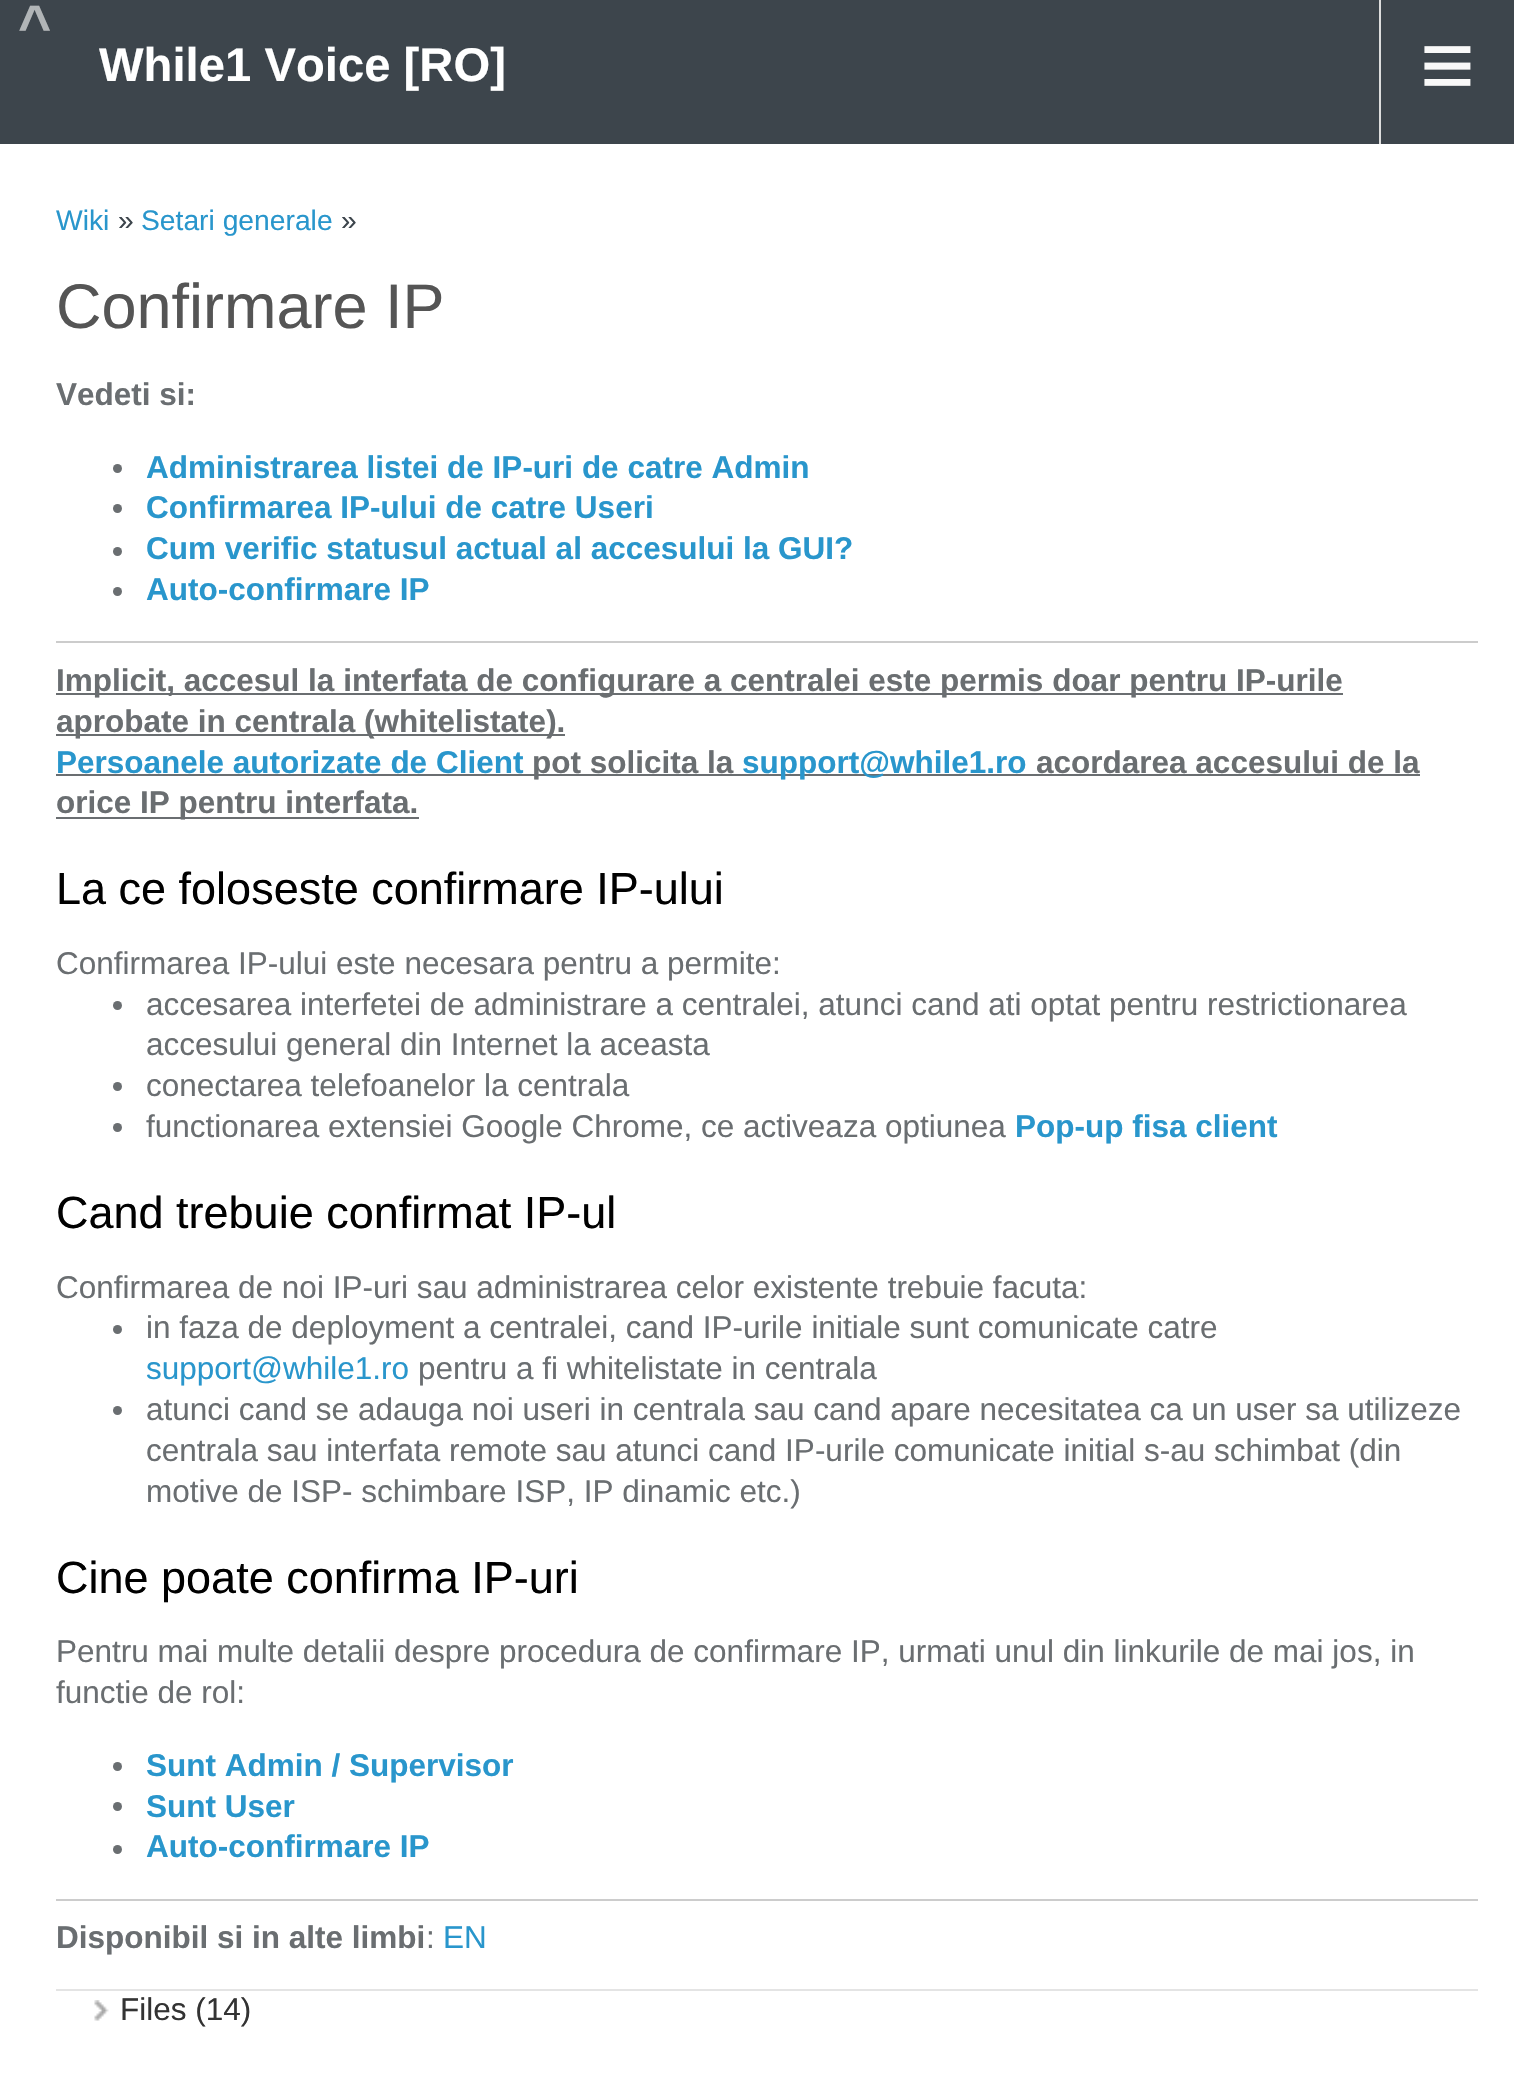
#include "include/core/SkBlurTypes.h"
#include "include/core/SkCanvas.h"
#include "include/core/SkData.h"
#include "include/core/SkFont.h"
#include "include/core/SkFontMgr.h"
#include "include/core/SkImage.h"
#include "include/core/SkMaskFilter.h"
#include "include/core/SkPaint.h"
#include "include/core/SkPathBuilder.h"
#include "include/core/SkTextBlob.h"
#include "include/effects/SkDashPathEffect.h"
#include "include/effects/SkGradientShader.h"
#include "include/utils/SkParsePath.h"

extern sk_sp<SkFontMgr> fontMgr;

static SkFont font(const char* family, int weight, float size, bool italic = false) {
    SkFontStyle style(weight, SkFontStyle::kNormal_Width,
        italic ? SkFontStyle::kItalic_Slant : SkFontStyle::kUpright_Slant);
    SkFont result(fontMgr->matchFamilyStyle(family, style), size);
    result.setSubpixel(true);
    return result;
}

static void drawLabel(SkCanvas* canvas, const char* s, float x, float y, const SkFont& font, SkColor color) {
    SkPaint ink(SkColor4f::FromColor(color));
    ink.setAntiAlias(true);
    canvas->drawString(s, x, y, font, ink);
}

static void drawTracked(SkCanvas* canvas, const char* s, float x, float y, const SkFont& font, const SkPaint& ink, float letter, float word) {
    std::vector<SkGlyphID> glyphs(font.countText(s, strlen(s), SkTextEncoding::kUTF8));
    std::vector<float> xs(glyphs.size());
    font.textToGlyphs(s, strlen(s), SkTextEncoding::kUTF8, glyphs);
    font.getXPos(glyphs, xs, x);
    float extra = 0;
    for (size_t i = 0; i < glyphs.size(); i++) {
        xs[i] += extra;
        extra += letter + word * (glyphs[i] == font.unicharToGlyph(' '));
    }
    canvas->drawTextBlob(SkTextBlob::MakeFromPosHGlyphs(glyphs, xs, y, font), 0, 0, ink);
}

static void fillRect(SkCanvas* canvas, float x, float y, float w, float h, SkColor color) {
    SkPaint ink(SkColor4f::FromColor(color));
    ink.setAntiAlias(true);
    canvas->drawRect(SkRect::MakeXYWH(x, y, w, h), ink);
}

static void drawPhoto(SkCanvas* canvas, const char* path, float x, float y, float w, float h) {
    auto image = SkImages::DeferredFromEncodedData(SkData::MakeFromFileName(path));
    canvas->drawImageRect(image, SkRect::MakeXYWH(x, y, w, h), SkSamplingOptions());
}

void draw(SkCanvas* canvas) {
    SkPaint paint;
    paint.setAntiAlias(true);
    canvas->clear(0xFFFFFFFF);
    fillRect(canvas, 0, 0, 1514, 144, 0xFF3D454C);
    SkFont font1 = font("Liberation Sans", 700, 57);
    paint.setColor(0xFFB1B5B7);
    drawTracked(canvas, "^", 18, 45, font1, paint, 8, 0);
    SkFont font2 = font("Liberation Sans", 700, 47.25f);
    drawLabel(canvas, "While1 Voice [RO]", 99, 81, font2, 0xFFFFFFFF);
    fillRect(canvas, 1379, 0, 2, 144, 0xFFDDDDDD);
    SkFont font3 = font("Liberation Sans", 400, 94);
    drawLabel(canvas, "≡", 1420, 97, font3, 0xFFF8F8F8);
    SkFont font4 = font("Liberation Sans", 400, 28.25f);
    drawLabel(canvas, "Wiki", 56, 230, font4, 0xFF2996CC);
    drawLabel(canvas, "»", 118, 230, font4, 0xFF3D454C);
    drawLabel(canvas, "Setari generale", 141, 230, font4, 0xFF2996CC);
    drawLabel(canvas, "»", 341, 230, font4, 0xFF3D454C);
    SkFont font5 = font("Liberation Sans", 400, 63);
    drawLabel(canvas, "Confirmare IP", 56, 328, font5, 0xFF555555);
    SkFont font6 = font("Liberation Sans", 700, 31.5f);
    drawLabel(canvas, "Vedeti si:", 56, 405, font6, 0xFF6A6E71);
    paint.setColor(0xFF6A6E71);
    canvas->drawCircle(117.5f, 468.5f, 4.5f, paint);
    drawLabel(canvas, "Administrarea listei de IP-uri de catre Admin", 146, 478, font6, 0xFF2996CC);
    canvas->drawCircle(117.5f, 508.5f, 4.5f, paint);
    drawLabel(canvas, "Confirmarea IP-ului de catre Useri", 146, 518, font6, 0xFF2996CC);
    canvas->drawCircle(117.5f, 551.5f, 4.5f, paint);
    drawLabel(canvas, "Cum verific statusul actual al accesului la GUI?", 146, 559, font6, 0xFF2996CC);
    canvas->drawCircle(117.5f, 591.5f, 4.5f, paint);
    drawLabel(canvas, "Auto-confirmare IP", 146, 600, font6, 0xFF2996CC);
    fillRect(canvas, 56, 641, 1422, 2, 0xFFCCCCCC);
    fillRect(canvas, 56, 693, 1287, 2, 0xFF6A6E71);
    drawLabel(canvas, "Implicit, accesul la interfata de configurare a centralei este permis doar pentru IP-urile", 56, 691, font6, 0xFF6A6E71);
    fillRect(canvas, 56, 734, 509, 2, 0xFF6A6E71);
    drawLabel(canvas, "aprobate in centrala (whitelistate).", 56, 732, font6, 0xFF6A6E71);
    drawLabel(canvas, "Persoanele autorizate de Client", 56, 773, font6, 0xFF2996CC);
    fillRect(canvas, 56, 774, 1364, 2, 0xFF6A6E71);
    drawLabel(canvas, "pot solicita la", 532, 773, font6, 0xFF6A6E71);
    drawLabel(canvas, "support@while1.ro", 742, 773, font6, 0xFF2996CC);
    drawLabel(canvas, "acordarea accesului de la", 1036, 773, font6, 0xFF6A6E71);
    fillRect(canvas, 56, 817, 363, 2, 0xFF6A6E71);
    drawLabel(canvas, "orice IP pentru interfata.", 56, 813, font6, 0xFF6A6E71);
    SkFont font7 = font("Liberation Sans", 400, 45);
    drawLabel(canvas, "La ce foloseste confirmare IP-ului", 56, 904, font7, 0xFF000000);
    SkFont font8 = font("Liberation Sans", 400, 31.5f);
    drawLabel(canvas, "Confirmarea IP-ului este necesara pentru a permite:", 56, 974, font8, 0xFF6A6E71);
    canvas->drawCircle(117.5f, 1005.5f, 4.5f, paint);
    drawLabel(canvas, "accesarea interfetei de administrare a centralei, atunci cand ati optat pentru restrictionarea", 146, 1015, font8, 0xFF6A6E71);
    drawLabel(canvas, "accesului general din Internet la aceasta", 146, 1055, font8, 0xFF6A6E71);
    canvas->drawCircle(117.5f, 1086.5f, 4.5f, paint);
    drawLabel(canvas, "conectarea telefoanelor la centrala", 146, 1096, font8, 0xFF6A6E71);
    canvas->drawCircle(117.5f, 1127.5f, 4.5f, paint);
    drawLabel(canvas, "functionarea extensiei Google Chrome, ce activeaza optiunea", 146, 1137, font8, 0xFF6A6E71);
    drawLabel(canvas, "Pop-up fisa client", 1015, 1137, font6, 0xFF2996CC);
    drawLabel(canvas, "Cand trebuie confirmat IP-ul", 56, 1228, font7, 0xFF000000);
    drawLabel(canvas, "Confirmarea de noi IP-uri sau administrarea celor existente trebuie facuta:", 56, 1298, font8, 0xFF6A6E71);
    canvas->drawCircle(117.5f, 1329.5f, 4.5f, paint);
    drawLabel(canvas, "in faza de deployment a centralei, cand IP-urile initiale sunt comunicate catre", 146, 1338, font8, 0xFF6A6E71);
    drawLabel(canvas, "support@while1.ro", 146, 1379, font8, 0xFF2996CC);
    drawLabel(canvas, "pentru a fi whitelistate in centrala", 418, 1379, font8, 0xFF6A6E71);
    canvas->drawCircle(117.5f, 1410.5f, 4.5f, paint);
    drawLabel(canvas, "atunci cand se adauga noi useri in centrala sau cand apare necesitatea ca un user sa utilizeze", 146, 1420, font8, 0xFF6A6E71);
    drawLabel(canvas, "centrala sau interfata remote sau atunci cand IP-urile comunicate initial s-au schimbat (din", 146, 1461, font8, 0xFF6A6E71);
    drawLabel(canvas, "motive de ISP- schimbare ISP, IP dinamic etc.)", 146, 1502, font8, 0xFF6A6E71);
    drawLabel(canvas, "Cine poate confirma IP-uri", 56, 1593, font7, 0xFF000000);
    drawLabel(canvas, "Pentru mai multe detalii despre procedura de confirmare IP, urmati unul din linkurile de mai jos, in", 56, 1662, font8, 0xFF6A6E71);
    drawLabel(canvas, "functie de rol:", 56, 1703, font8, 0xFF6A6E71);
    canvas->drawCircle(117.5f, 1766.5f, 4.5f, paint);
    drawLabel(canvas, "Sunt Admin / Supervisor", 146, 1776, font6, 0xFF2996CC);
    canvas->drawCircle(117.5f, 1806.5f, 4.5f, paint);
    drawLabel(canvas, "Sunt User", 146, 1817, font6, 0xFF2996CC);
    canvas->drawCircle(117.5f, 1849.5f, 4.5f, paint);
    drawLabel(canvas, "Auto-confirmare IP", 146, 1857, font6, 0xFF2996CC);
    fillRect(canvas, 56, 1899, 1422, 2, 0xFFCCCCCC);
    drawLabel(canvas, "Disponibil si in alte limbi", 56, 1948, font6, 0xFF6A6E71);
    drawLabel(canvas, ":", 426, 1948, font8, 0xFF6A6E71);
    drawLabel(canvas, "EN", 443, 1948, font8, 0xFF2996CC);
    fillRect(canvas, 56, 1989, 1422, 2, 0xFFE4E4E4);
    drawPhoto(canvas, "assets/img1.png", 94, 2000, 15, 21);
    drawLabel(canvas, "Files (14)", 120, 2020, font8, 0xFF333333);
}
